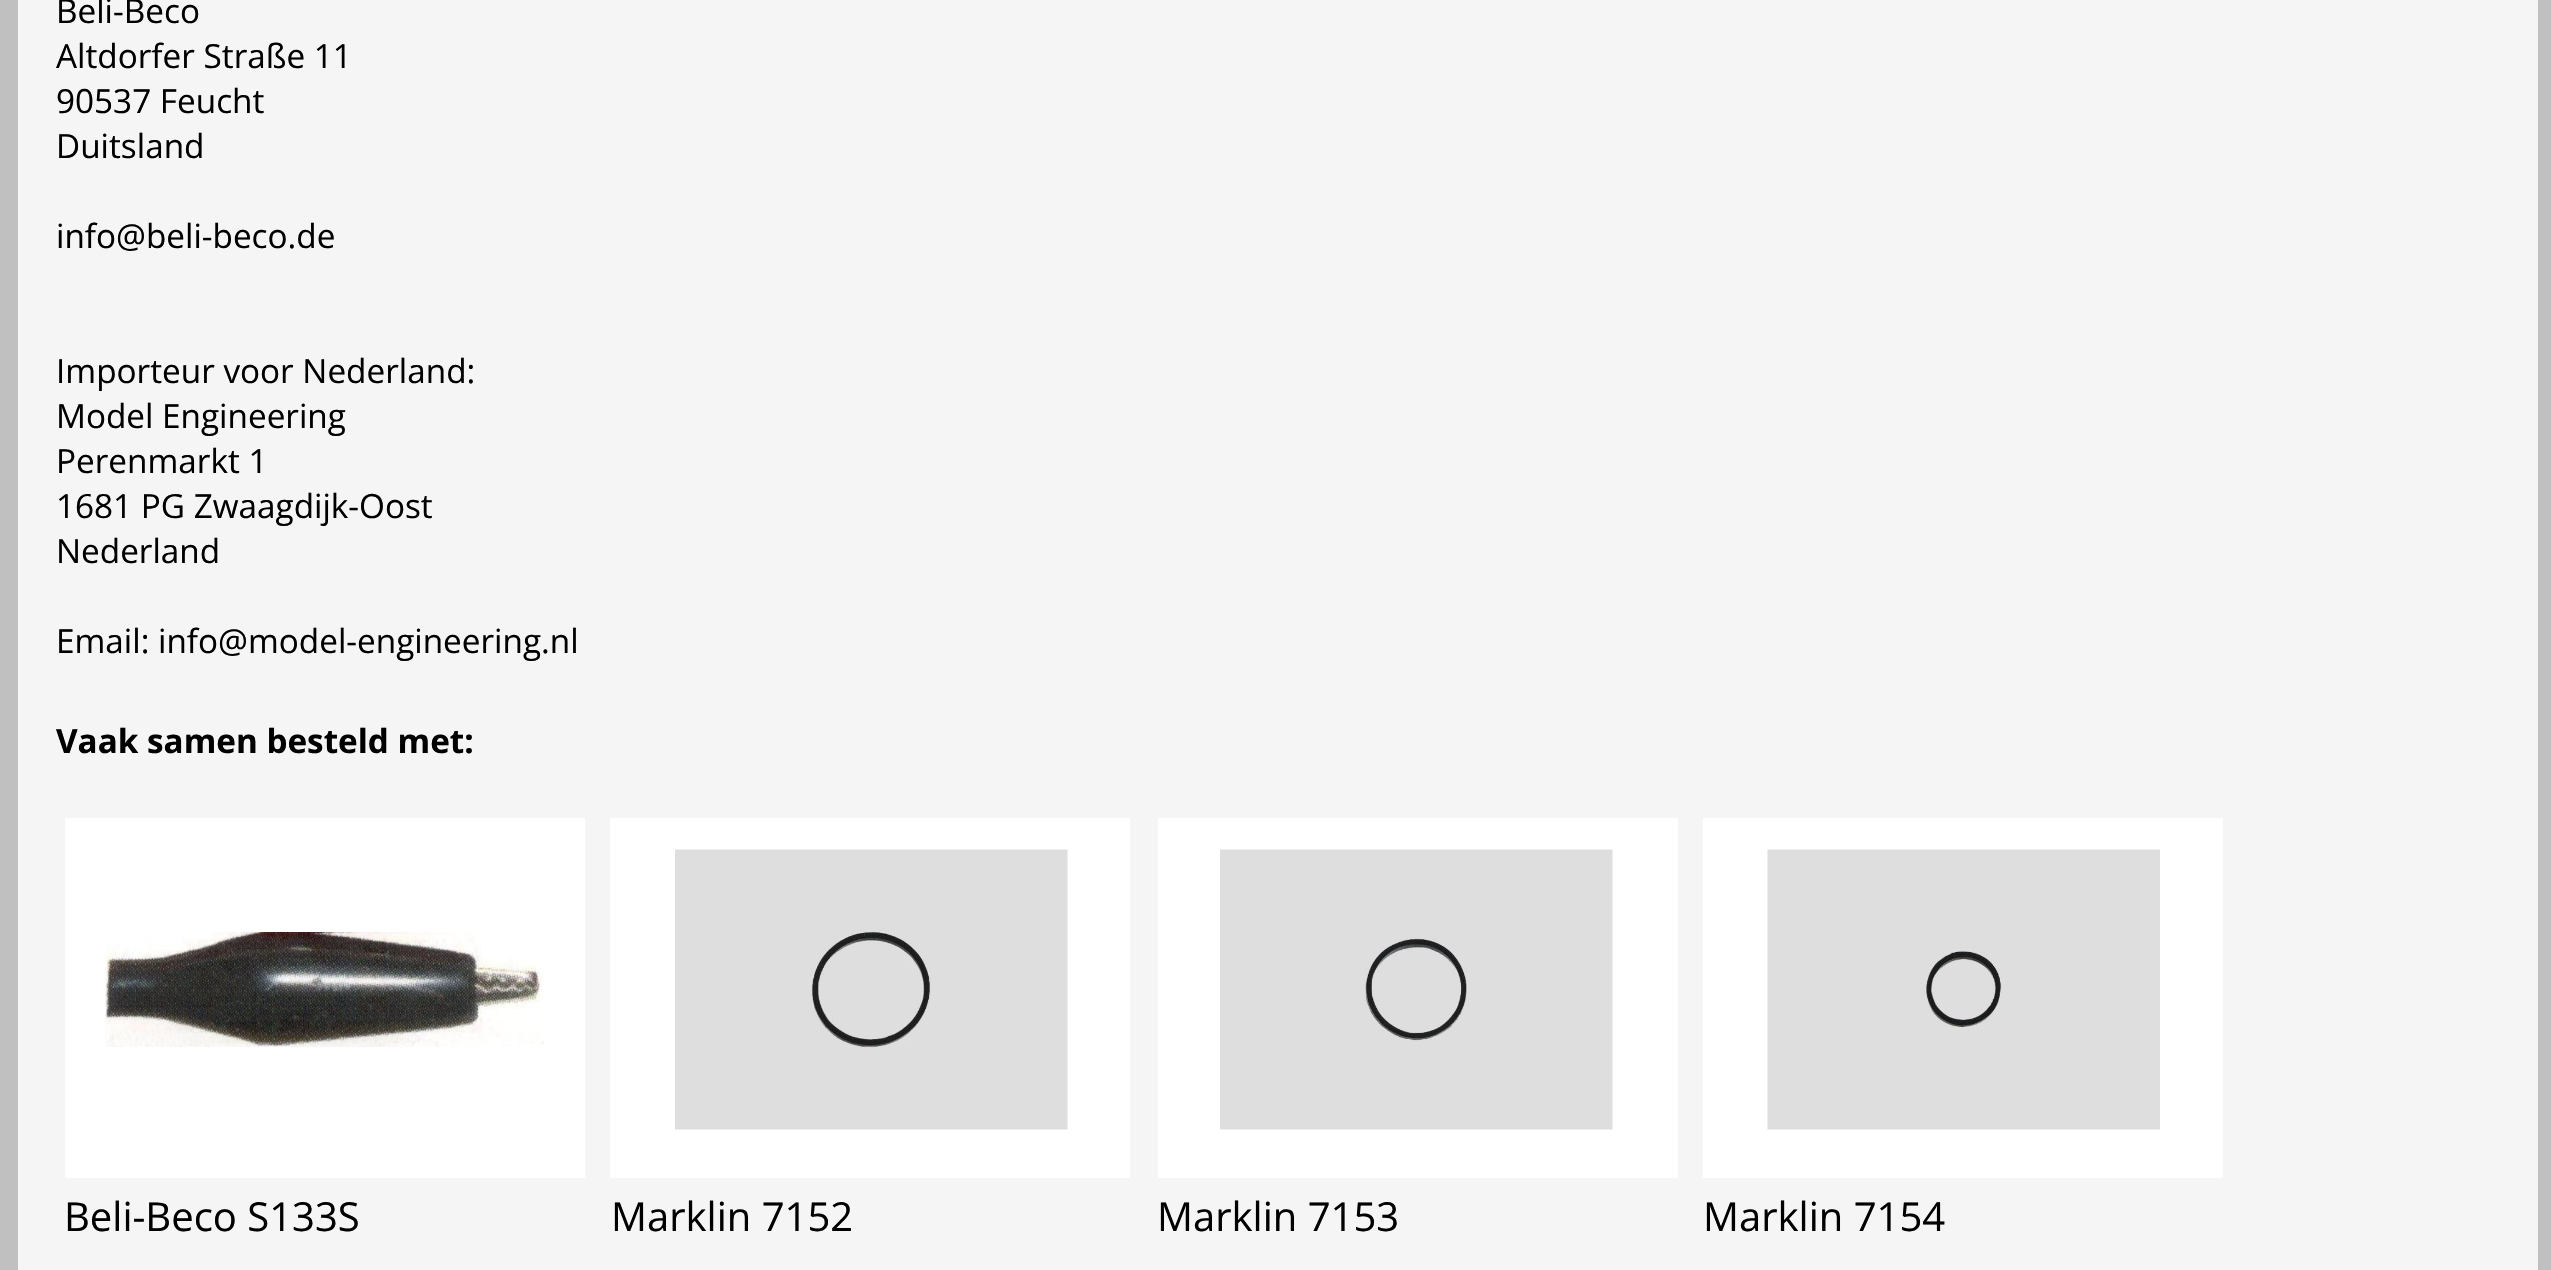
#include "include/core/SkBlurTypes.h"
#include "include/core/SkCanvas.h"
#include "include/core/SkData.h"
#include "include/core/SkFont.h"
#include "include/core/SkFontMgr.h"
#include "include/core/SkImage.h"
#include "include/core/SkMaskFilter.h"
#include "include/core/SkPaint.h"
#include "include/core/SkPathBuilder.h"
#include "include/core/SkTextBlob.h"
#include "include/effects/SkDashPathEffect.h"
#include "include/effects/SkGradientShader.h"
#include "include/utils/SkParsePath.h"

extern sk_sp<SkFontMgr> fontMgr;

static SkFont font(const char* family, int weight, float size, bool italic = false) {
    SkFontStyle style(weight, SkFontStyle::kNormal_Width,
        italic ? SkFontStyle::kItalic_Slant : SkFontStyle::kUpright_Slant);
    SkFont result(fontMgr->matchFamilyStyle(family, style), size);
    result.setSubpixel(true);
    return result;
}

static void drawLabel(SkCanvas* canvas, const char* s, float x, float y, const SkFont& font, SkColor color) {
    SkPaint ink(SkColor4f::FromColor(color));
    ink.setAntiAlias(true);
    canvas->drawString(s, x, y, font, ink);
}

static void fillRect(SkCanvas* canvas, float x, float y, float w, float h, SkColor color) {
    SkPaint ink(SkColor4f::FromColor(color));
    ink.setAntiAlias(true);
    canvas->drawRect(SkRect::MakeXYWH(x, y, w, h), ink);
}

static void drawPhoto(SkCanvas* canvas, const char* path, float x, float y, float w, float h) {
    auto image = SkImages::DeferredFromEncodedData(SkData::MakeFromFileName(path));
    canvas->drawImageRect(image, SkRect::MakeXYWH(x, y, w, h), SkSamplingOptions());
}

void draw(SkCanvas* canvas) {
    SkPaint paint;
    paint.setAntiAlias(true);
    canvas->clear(0xFFC0C0C0);
    fillRect(canvas, 18, 0, 2520, 1270, 0xFFF5F5F5);
    SkFont font1 = font("Open Sans", 400, 33.3f);
    drawLabel(canvas, "Beli-Beco", 56, 23, font1, 0xFF000000);
    drawLabel(canvas, "Altdorfer Straße 11", 56, 68, font1, 0xFF000000);
    drawLabel(canvas, "90537 Feucht", 56, 113, font1, 0xFF000000);
    drawLabel(canvas, "Duitsland", 56, 158, font1, 0xFF000000);
    drawLabel(canvas, "info@beli-beco.de", 56, 248, font1, 0xFF000000);
    drawLabel(canvas, "Importeur voor Nederland:", 56, 383, font1, 0xFF000000);
    drawLabel(canvas, "Model Engineering", 56, 428, font1, 0xFF000000);
    drawLabel(canvas, "Perenmarkt 1", 56, 473, font1, 0xFF000000);
    drawLabel(canvas, "1681 PG Zwaagdijk-Oost", 56, 518, font1, 0xFF000000);
    drawLabel(canvas, "Nederland", 56, 563, font1, 0xFF000000);
    drawLabel(canvas, "Email: info@model-engineering.nl", 56, 653, font1, 0xFF000000);
    SkFont font2 = font("Open Sans", 700, 33.25f);
    drawLabel(canvas, "Vaak samen besteld met:", 56, 753, font2, 0xFF000000);
    fillRect(canvas, 65, 818, 520, 360, 0xFFFFFFFF);
    drawPhoto(canvas, "assets/img1.png", 105, 932, 440, 115);
    SkFont font3 = font("Open Sans", 400, 40);
    drawLabel(canvas, "Beli-Beco S133S", 64, 1231, font3, 0xFF000000);
    fillRect(canvas, 610, 818, 520, 360, 0xFFFFFFFF);
    drawPhoto(canvas, "assets/img2.png", 675, 849, 393, 281);
    drawLabel(canvas, "Marklin 7152", 611, 1231, font3, 0xFF000000);
    fillRect(canvas, 1158, 818, 520, 360, 0xFFFFFFFF);
    drawPhoto(canvas, "assets/img3.png", 1220, 849, 393, 281);
    drawLabel(canvas, "Marklin 7153", 1157, 1231, font3, 0xFF000000);
    fillRect(canvas, 1703, 818, 520, 360, 0xFFFFFFFF);
    drawPhoto(canvas, "assets/img4.png", 1767, 849, 393, 281);
    drawLabel(canvas, "Marklin 7154", 1703, 1231, font3, 0xFF000000);
}
